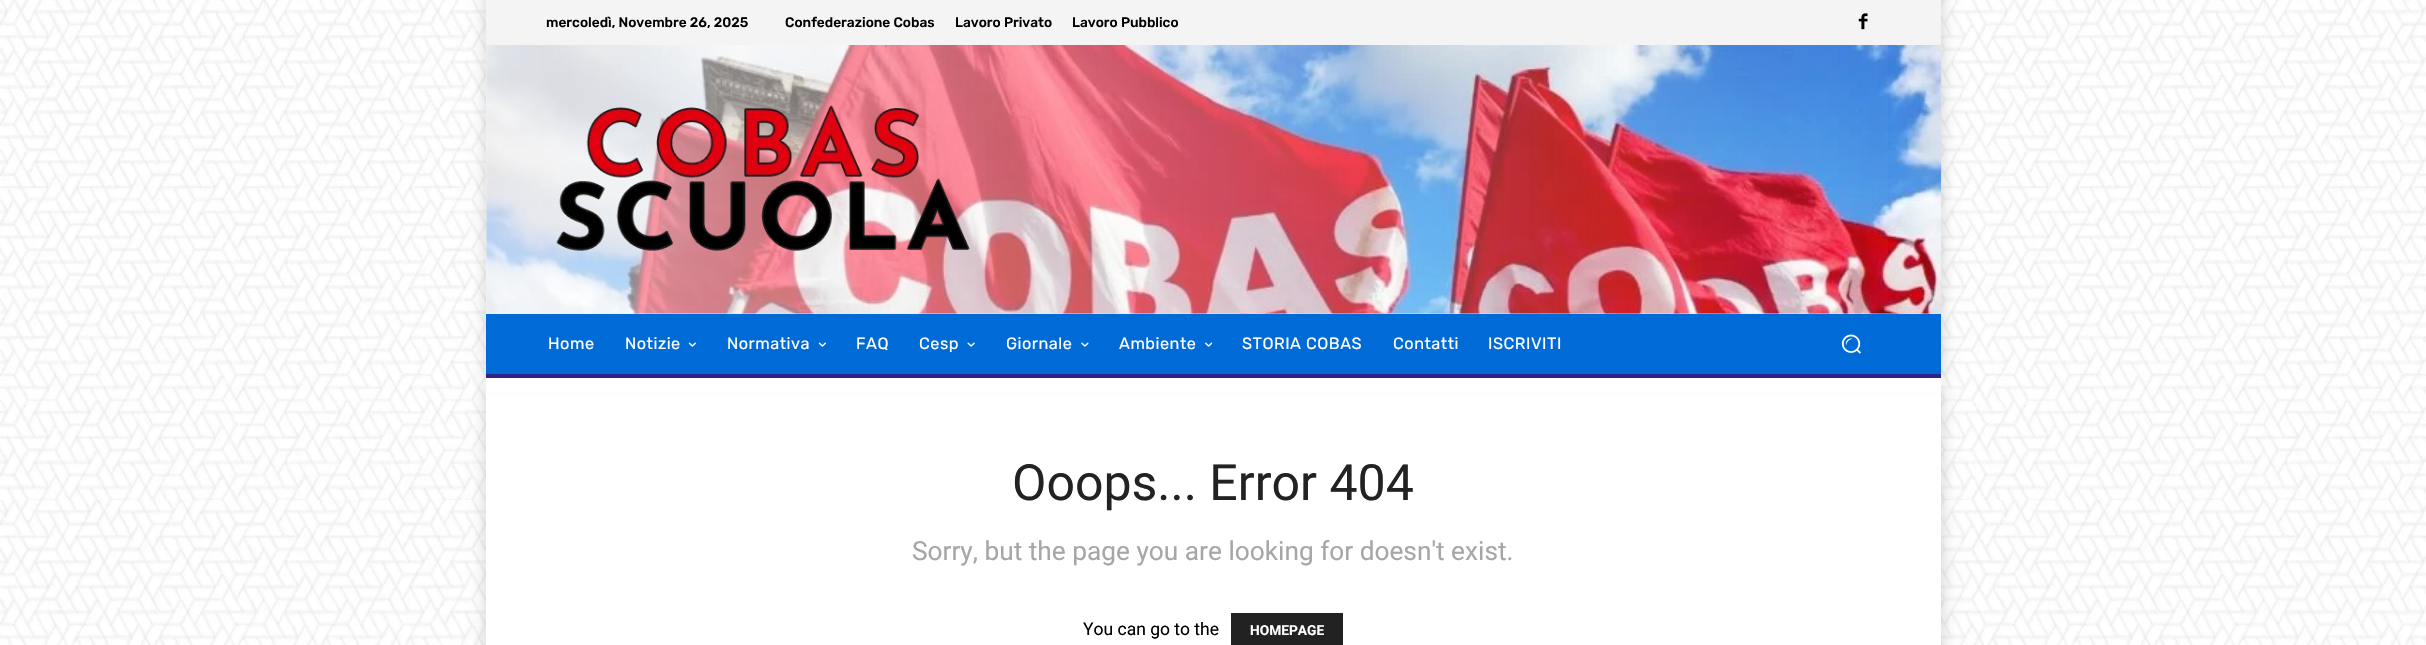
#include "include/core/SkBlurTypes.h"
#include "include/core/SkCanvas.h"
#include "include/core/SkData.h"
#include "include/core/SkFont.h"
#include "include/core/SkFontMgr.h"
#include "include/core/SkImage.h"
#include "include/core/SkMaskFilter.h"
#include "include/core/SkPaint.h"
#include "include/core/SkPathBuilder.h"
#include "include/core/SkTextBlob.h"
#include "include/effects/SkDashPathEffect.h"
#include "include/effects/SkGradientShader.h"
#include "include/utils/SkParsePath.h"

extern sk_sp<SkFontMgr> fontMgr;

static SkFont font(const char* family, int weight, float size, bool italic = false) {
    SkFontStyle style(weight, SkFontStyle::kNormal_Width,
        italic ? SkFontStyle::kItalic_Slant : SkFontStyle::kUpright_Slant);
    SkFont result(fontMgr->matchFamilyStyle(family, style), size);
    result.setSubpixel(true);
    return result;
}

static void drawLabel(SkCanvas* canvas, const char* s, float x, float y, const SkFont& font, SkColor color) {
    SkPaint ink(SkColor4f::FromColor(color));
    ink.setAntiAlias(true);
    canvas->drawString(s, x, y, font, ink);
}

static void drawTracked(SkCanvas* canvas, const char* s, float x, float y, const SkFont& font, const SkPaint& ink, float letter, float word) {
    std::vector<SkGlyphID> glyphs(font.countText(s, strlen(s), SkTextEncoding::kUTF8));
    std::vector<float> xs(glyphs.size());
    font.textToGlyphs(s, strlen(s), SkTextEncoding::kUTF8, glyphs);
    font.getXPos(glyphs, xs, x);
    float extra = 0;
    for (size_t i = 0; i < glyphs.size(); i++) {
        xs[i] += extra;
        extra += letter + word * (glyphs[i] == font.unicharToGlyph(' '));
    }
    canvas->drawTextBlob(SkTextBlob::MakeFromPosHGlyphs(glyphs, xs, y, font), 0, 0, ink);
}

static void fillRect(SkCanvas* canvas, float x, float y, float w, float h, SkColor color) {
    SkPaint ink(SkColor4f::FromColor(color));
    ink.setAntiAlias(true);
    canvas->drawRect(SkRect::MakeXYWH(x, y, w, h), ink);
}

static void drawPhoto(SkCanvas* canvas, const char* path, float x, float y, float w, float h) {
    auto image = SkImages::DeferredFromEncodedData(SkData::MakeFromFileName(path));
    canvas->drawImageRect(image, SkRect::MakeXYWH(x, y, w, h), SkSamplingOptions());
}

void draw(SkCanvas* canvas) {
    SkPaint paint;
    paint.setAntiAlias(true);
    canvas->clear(0xFFFFFFFF);
    drawPhoto(canvas, "assets/img1.png", 0, 0, 2426, 645);
    paint.setColor(0x1F000000);
    paint.setMaskFilter(SkMaskFilter::MakeBlur(kNormal_SkBlurStyle, 6));
    canvas->drawRect(SkRect::MakeXYWH(483, 386, 1462, 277), paint);
    paint.setMaskFilter(nullptr);
    fillRect(canvas, 486, 390, 1455, 255, 0xFFFFFFFF);
    paint.setMaskFilter(SkMaskFilter::MakeBlur(kNormal_SkBlurStyle, 6));
    canvas->drawRect(SkRect::MakeXYWH(483, -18, 1462, 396), paint);
    paint.setMaskFilter(nullptr);
    fillRect(canvas, 486, 0, 1455, 45, 0xFFF4F4F4);
    SkFont font1 = font("Rubik", 500, 13.75f);
    drawLabel(canvas, "mercoledì, Novembre 26, 2025", 546, 27, font1, 0xFF000000);
    drawLabel(canvas, "Confederazione Cobas", 785, 27, font1, 0xFF000000);
    drawLabel(canvas, "Lavoro Privato", 955, 27, font1, 0xFF000000);
    drawLabel(canvas, "Lavoro Pubblico", 1072, 27, font1, 0xFF000000);
    drawPhoto(canvas, "assets/img2.png", 1858, 13, 10, 17);
    fillRect(canvas, 486, 45, 1455, 269, 0xFFE5E5E5);
    drawPhoto(canvas, "assets/img3.png", 486, 45, 1456, 269);
    {
        const SkColor colors[] = {0x96FFFFFF, 0x00FFFFFF};
        const float stops[] = {0, 1};
        const SkPoint ends[] = {{486, 179}, {1941, 179}};
        paint.setShader(SkGradientShader::MakeLinear(ends, colors, stops, 2, SkTileMode::kClamp));
        paint.setAlpha(255);
    }
    canvas->drawRect(SkRect::MakeXYWH(486, 45, 1402, 269), paint);
    drawPhoto(canvas, "assets/img4.png", 556, 105, 414, 146);
    fillRect(canvas, 486, 314, 1455, 60, 0xFF006BD6);
    SkFont font2 = font("Rubik", 400, 16.25f);
    paint.setShader(nullptr);
    paint.setColor(0xFFFFFFFF);
    drawTracked(canvas, "Home", 548, 349, font2, paint, 0.5f, 0);
    drawTracked(canvas, "Notizie", 625, 349, font2, paint, 0.5f, 0);
    drawPhoto(canvas, "assets/img5.png", 688, 342, 8, 5);
    drawTracked(canvas, "Normativa", 727, 349, font2, paint, 0.5f, 0);
    drawPhoto(canvas, "assets/img5.png", 818, 342, 8, 5);
    drawTracked(canvas, "FAQ", 856, 349, font2, paint, 0.5f, 0);
    drawTracked(canvas, "Cesp", 919, 349, font2, paint, 0.5f, 0);
    drawPhoto(canvas, "assets/img6.png", 967, 342, 8, 5);
    drawTracked(canvas, "Giornale", 1006, 349, font2, paint, 0.5f, 0);
    drawPhoto(canvas, "assets/img7.png", 1081, 342, 8, 5);
    drawTracked(canvas, "Ambiente", 1119, 349, font2, paint, 0.5f, 0);
    drawPhoto(canvas, "assets/img8.png", 1205, 342, 8, 5);
    drawTracked(canvas, "STORIA COBAS", 1242, 349, font2, paint, 0.5f, 0);
    drawTracked(canvas, "Contatti", 1393, 349, font2, paint, 0.5f, 0);
    drawTracked(canvas, "ISCRIVITI", 1488, 349, font2, paint, 0.5f, 0);
    drawPhoto(canvas, "assets/img9.png", 1841, 334, 20, 20);
    fillRect(canvas, 486, 374, 1455, 4, 0xFF31208E);
    fillRect(canvas, 486, 378, 1455, 12, 0xFFFFFFFF);
    SkFont font3 = font("Roboto", 400, 50);
    drawLabel(canvas, "Ooops... Error 404", 1012, 500, font3, 0xFF222222);
    SkFont font4 = font("Roboto", 400, 26.25f);
    drawLabel(canvas, "Sorry, but the page you are looking for doesn't exist.", 912, 560, font4, 0xFFA6A6A6);
    SkFont font5 = font("Roboto", 400, 17.5f);
    drawLabel(canvas, "You can go to the", 1083, 635, font5, 0xFF000000);
    fillRect(canvas, 1231, 613, 112, 32, 0xFF222222);
    SkFont font6 = font("Roboto", 700, 13.75f);
    drawLabel(canvas, "HOMEPAGE", 1250, 635, font6, 0xFFFFFFFF);
}
